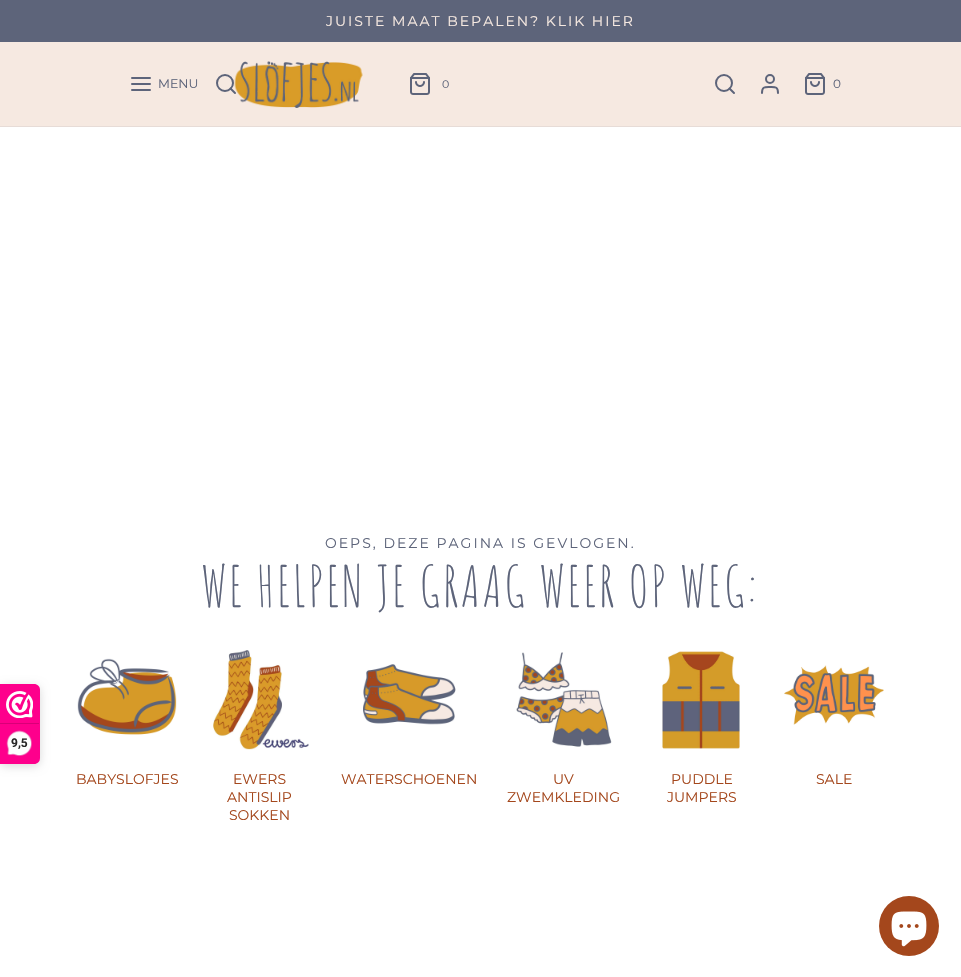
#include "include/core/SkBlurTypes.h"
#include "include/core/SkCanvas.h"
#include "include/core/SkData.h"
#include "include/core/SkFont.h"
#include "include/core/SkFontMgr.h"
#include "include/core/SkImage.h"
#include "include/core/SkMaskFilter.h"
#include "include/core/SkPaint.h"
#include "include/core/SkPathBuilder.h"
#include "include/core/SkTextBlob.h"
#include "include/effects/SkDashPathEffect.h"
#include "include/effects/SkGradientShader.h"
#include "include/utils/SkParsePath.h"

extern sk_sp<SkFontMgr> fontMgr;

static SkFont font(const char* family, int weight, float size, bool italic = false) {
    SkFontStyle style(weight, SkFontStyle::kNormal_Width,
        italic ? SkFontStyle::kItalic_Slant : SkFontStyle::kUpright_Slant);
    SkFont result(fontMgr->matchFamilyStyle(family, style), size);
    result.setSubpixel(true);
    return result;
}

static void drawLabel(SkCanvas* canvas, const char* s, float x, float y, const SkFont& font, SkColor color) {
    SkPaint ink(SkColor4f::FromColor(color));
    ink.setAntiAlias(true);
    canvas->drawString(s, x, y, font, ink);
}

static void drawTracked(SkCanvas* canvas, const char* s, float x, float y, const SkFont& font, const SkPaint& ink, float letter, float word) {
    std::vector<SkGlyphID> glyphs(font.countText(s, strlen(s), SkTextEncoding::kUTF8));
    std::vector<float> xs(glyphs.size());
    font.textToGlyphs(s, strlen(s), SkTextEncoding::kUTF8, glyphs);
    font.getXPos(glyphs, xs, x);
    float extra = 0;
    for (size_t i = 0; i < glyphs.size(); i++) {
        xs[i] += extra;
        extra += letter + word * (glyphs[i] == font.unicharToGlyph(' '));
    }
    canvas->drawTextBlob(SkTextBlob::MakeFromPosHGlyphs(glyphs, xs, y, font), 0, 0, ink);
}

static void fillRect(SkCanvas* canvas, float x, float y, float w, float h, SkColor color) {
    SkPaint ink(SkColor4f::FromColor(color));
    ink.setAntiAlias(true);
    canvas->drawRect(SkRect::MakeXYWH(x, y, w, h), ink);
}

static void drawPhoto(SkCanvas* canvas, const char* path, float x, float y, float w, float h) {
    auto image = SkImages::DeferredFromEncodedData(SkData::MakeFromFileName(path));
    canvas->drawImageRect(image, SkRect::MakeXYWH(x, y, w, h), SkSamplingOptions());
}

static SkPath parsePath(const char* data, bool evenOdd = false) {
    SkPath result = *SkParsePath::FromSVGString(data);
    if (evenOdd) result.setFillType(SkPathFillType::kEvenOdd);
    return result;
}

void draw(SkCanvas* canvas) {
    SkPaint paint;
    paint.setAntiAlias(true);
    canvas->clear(0xFFFFFFFF);
    paint.setColor(0x26000000);
    paint.setMaskFilter(SkMaskFilter::MakeBlur(kNormal_SkBlurStyle, 5));
    canvas->drawRoundRect(SkRect::MakeXYWH(0, 686, 40, 80), 6, 6, paint);
    paint.setMaskFilter(nullptr);
    paint.setColor(0xFFFE008C);
    canvas->drawPath(parsePath("M0 684H34C37.5 684 40 686.5 40 690V758C40 761.5 37.5 764 34 764H0Z"), paint);
    drawPhoto(canvas, "assets/img1.png", 6, 691, 27, 27);
    fillRect(canvas, 0, 723, 39, 1, 0xFFD80077);
    drawPhoto(canvas, "assets/img2.png", 6, 730, 26, 27);
    SkFont font1 = font("Roboto", 700, 12);
    drawLabel(canvas, "9,5", 11, 747, font1, 0xFF272626);
    fillRect(canvas, 0, 0, 961, 42, 0xFF5D647A);
    SkFont font2 = font("Montserrat", 400, 14);
    paint.setColor(0xFFF6E9E1);
    drawTracked(canvas, "JUISTE MAAT BEPALEN? KLIK HIER", 326, 26, font2, paint, 2, 0);
    fillRect(canvas, 0, 42, 961, 84, 0xFFF6E9E1);
    fillRect(canvas, 0, 126, 961, 1, 0xFFE7DCD7);
    paint.setStroke(true);
    paint.setStrokeWidth(2);
    paint.setStrokeCap(SkPaint::kRound_Cap);
    paint.setStrokeJoin(SkPaint::kRound_Join);
    paint.setColor(0xFF5D647A);
    canvas->drawPath(parsePath("M132 84H150M132 78H150M132 90H150"), paint);
    SkFont font3 = font("Montserrat", 400, 12.5f);
    drawLabel(canvas, "MENU", 158, 88, font3, 0xFF5D647A);
    paint.setStrokeCap(SkPaint::kButt_Cap);
    paint.setStrokeJoin(SkPaint::kMiter_Join);
    canvas->drawCircle(225, 83, 8, paint);
    drawPhoto(canvas, "assets/img3.png", 234, 61, 129, 47);
    paint.setStrokeCap(SkPaint::kRound_Cap);
    paint.setStrokeJoin(SkPaint::kRound_Join);
    canvas->drawPath(parsePath("M235 93L230.5 88.5"), paint);
    drawPhoto(canvas, "assets/img4.png", 410, 73, 20, 22);
    SkFont font4 = font("Montserrat", 400, 11);
    drawLabel(canvas, "0", 442, 88, font4, 0xFF5D647A);
    paint.setStrokeCap(SkPaint::kButt_Cap);
    paint.setStrokeJoin(SkPaint::kMiter_Join);
    canvas->drawCircle(724, 83, 8, paint);
    paint.setStrokeCap(SkPaint::kRound_Cap);
    paint.setStrokeJoin(SkPaint::kRound_Join);
    canvas->drawPath(parsePath("M734 93L729.5 88.5M778 93C778 86.5 775.5 87 770 87C764.5 87 762 86.5 762 93"), paint);
    paint.setStrokeCap(SkPaint::kButt_Cap);
    paint.setStrokeJoin(SkPaint::kMiter_Join);
    canvas->drawCircle(770, 79, 4, paint);
    drawPhoto(canvas, "assets/img4.png", 805, 73, 20, 22);
    SkFont font5 = font("Montserrat", 400, 12);
    drawLabel(canvas, "0", 833, 88, font5, 0xFF5D647A);
    paint.setStroke(false);
    drawTracked(canvas, "OEPS, DEZE PAGINA IS GEVLOGEN.", 325, 548, font2, paint, 2, 0);
    SkFont font6 = font("Amatic SC", 400, 56);
    drawTracked(canvas, "WE HELPEN JE GRAAG WEER OP WEG:", 201, 607, font6, paint, 2, 0);
    drawPhoto(canvas, "assets/img5.png", 77, 658, 100, 77);
    drawLabel(canvas, "BABYSLOFJES", 76, 784, font2, 0xFFA4471C);
    drawPhoto(canvas, "assets/img6.png", 213, 650, 96, 100);
    drawLabel(canvas, "EWERS", 233, 784, font2, 0xFFA4471C);
    drawLabel(canvas, "ANTISLIP", 227, 802, font2, 0xFFA4471C);
    drawLabel(canvas, "SOKKEN", 229, 820, font2, 0xFFA4471C);
    drawPhoto(canvas, "assets/img7.png", 363, 664, 93, 61);
    drawLabel(canvas, "WATERSCHOENEN", 341, 784, font2, 0xFFA4471C);
    drawPhoto(canvas, "assets/img8.png", 516, 652, 96, 95);
    drawLabel(canvas, "UV", 553, 784, font2, 0xFFA4471C);
    drawLabel(canvas, "ZWEMKLEDING", 507, 802, font2, 0xFFA4471C);
    drawPhoto(canvas, "assets/img9.png", 662, 651, 78, 98);
    drawLabel(canvas, "PUDDLE", 671, 784, font2, 0xFFA4471C);
    drawLabel(canvas, "JUMPERS", 667, 802, font2, 0xFFA4471C);
    drawPhoto(canvas, "assets/img10.png", 784, 665, 100, 60);
    drawLabel(canvas, "SALE", 816, 784, font2, 0xFFA4471C);
    paint.setColor(0xFFA4471C);
    canvas->drawCircle(909, 926, 30, paint);
    drawPhoto(canvas, "assets/img11.png", 891, 911, 36, 36);
}
